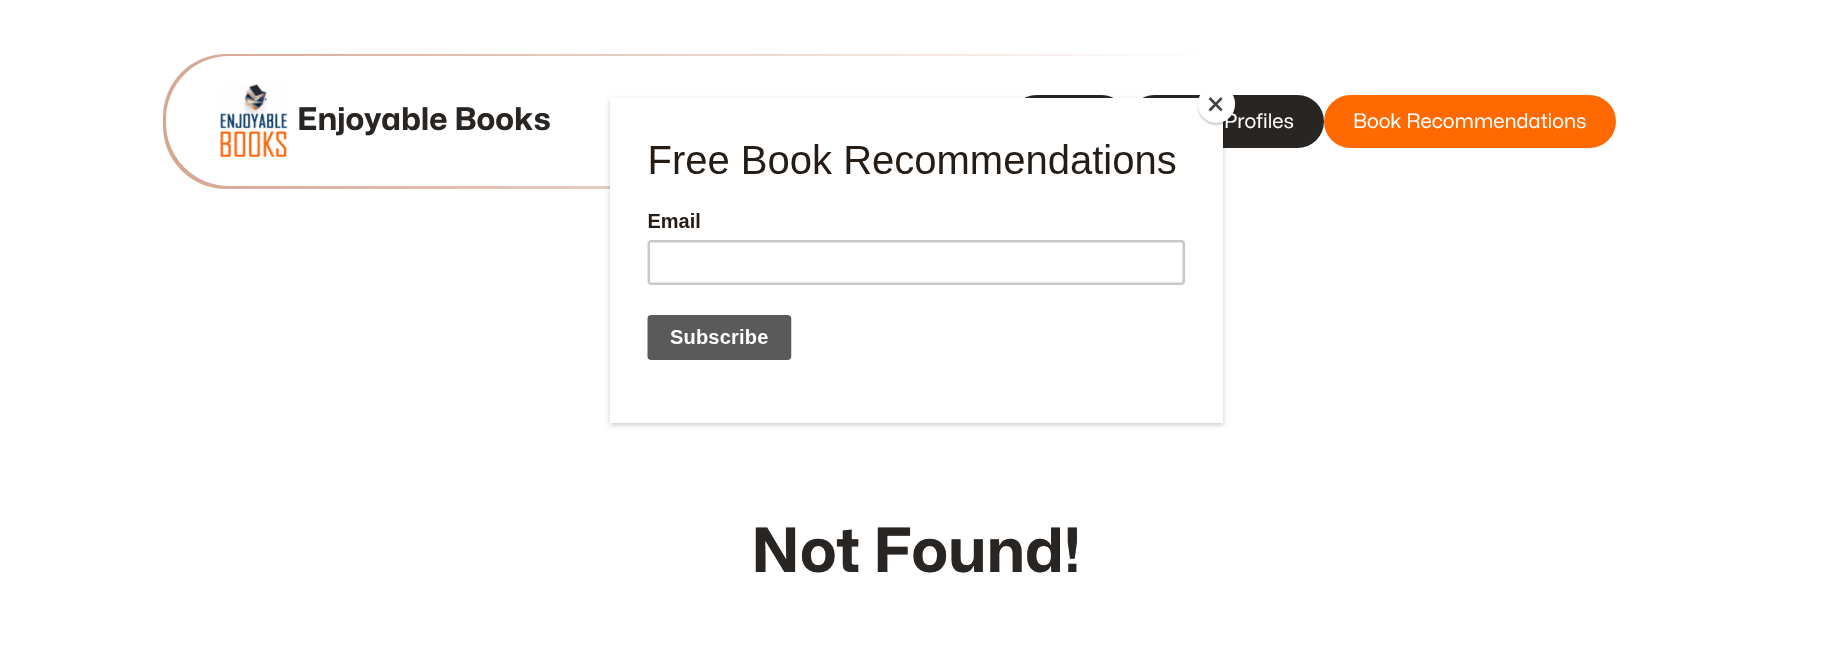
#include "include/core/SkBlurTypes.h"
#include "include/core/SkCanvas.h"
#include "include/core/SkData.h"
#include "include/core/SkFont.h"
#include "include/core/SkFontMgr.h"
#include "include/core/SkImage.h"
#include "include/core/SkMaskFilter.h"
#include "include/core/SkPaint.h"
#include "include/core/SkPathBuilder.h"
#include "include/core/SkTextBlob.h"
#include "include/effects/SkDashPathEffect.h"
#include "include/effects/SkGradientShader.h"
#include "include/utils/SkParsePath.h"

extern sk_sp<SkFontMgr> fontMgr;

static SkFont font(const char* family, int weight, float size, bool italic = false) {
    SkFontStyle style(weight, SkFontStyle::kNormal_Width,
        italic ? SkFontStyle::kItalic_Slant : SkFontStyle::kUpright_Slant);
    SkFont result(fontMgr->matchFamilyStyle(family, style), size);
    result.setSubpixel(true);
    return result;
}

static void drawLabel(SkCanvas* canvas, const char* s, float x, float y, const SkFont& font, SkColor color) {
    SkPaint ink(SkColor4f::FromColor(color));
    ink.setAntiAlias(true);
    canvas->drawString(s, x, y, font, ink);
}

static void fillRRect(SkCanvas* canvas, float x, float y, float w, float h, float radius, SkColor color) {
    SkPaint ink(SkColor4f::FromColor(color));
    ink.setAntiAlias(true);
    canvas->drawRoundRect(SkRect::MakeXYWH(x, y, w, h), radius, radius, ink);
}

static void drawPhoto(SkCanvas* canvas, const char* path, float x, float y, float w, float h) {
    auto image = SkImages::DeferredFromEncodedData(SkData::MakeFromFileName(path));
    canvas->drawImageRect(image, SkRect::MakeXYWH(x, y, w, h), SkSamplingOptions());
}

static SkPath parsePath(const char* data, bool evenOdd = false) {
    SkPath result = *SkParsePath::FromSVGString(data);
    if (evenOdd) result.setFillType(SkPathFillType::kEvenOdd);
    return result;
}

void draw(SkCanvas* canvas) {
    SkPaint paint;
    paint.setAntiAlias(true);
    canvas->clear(0xFFFFFFFF);
    {
        const SkColor colors[] = {0xFFD6A692, 0xFFFFFFFF};
        const float stops[] = {0, 0.7f};
        const SkPoint ends[] = {{163, 121}, {1669, 121}};
        paint.setShader(SkGradientShader::MakeLinear(ends, colors, stops, 2, SkTileMode::kClamp));
        paint.setAlpha(255);
    }
    canvas->drawRoundRect(SkRect::MakeXYWH(163, 54, 1506, 135), 63, 63, paint);
    fillRRect(canvas, 166, 56, 1500, 130, 63, 0xFFFFFFFF);
    fillRRect(canvas, 1010, 95, 118, 53, 26.5f, 0xFF292522);
    fillRRect(canvas, 1128, 95, 196, 53, 26.5f, 0xFF292522);
    paint.setShader(nullptr);
    paint.setColor(0x33000000);
    paint.setMaskFilter(SkMaskFilter::MakeBlur(kNormal_SkBlurStyle, 2.5f));
    canvas->drawRect(SkRect::MakeXYWH(610, 100, 613, 325), paint);
    paint.setMaskFilter(nullptr);
    drawPhoto(canvas, "assets/img1.png", 610, 98, 613, 325);
    paint.setMaskFilter(SkMaskFilter::MakeBlur(kNormal_SkBlurStyle, 1));
    canvas->drawRoundRect(SkRect::MakeXYWH(1198, 88, 37, 37), 18.5f, 18.5f, paint);
    paint.setMaskFilter(nullptr);
    fillRRect(canvas, 1198, 85, 37, 38, 18.5f, 0xFFFFFFFF);
    paint.setColor(0xFF414141);
    canvas->drawPath(parsePath("M1221 97L1222.5 99L1210.5 111.5L1208.5 109.5Z"), paint);
    canvas->drawPath(parsePath("M1208.5 99L1210.5 97L1222.5 109.5L1221 111.5Z"), paint);
    drawPhoto(canvas, "assets/img2.png", 220, 84, 68, 73);
    SkFont font1 = font("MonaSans", 700, 31.25f);
    drawLabel(canvas, "Enjoyable Books", 297, 130, font1, 0xFF292522);
    SkFont font2 = font("MonaSans", 400, 20, true);
    drawLabel(canvas, "Profiles", 1224, 128, font2, 0xFFFFFFFF);
    fillRRect(canvas, 1324, 95, 292, 53, 26.5f, 0xFFFF6900);
    drawLabel(canvas, "Book Recommendations", 1353, 128, font2, 0xFFFFFFFF);
    SkFont font3 = font("MonaSans", 700, 61);
    drawLabel(canvas, "Not Found!", 751, 572, font3, 0xFF292522);
}
